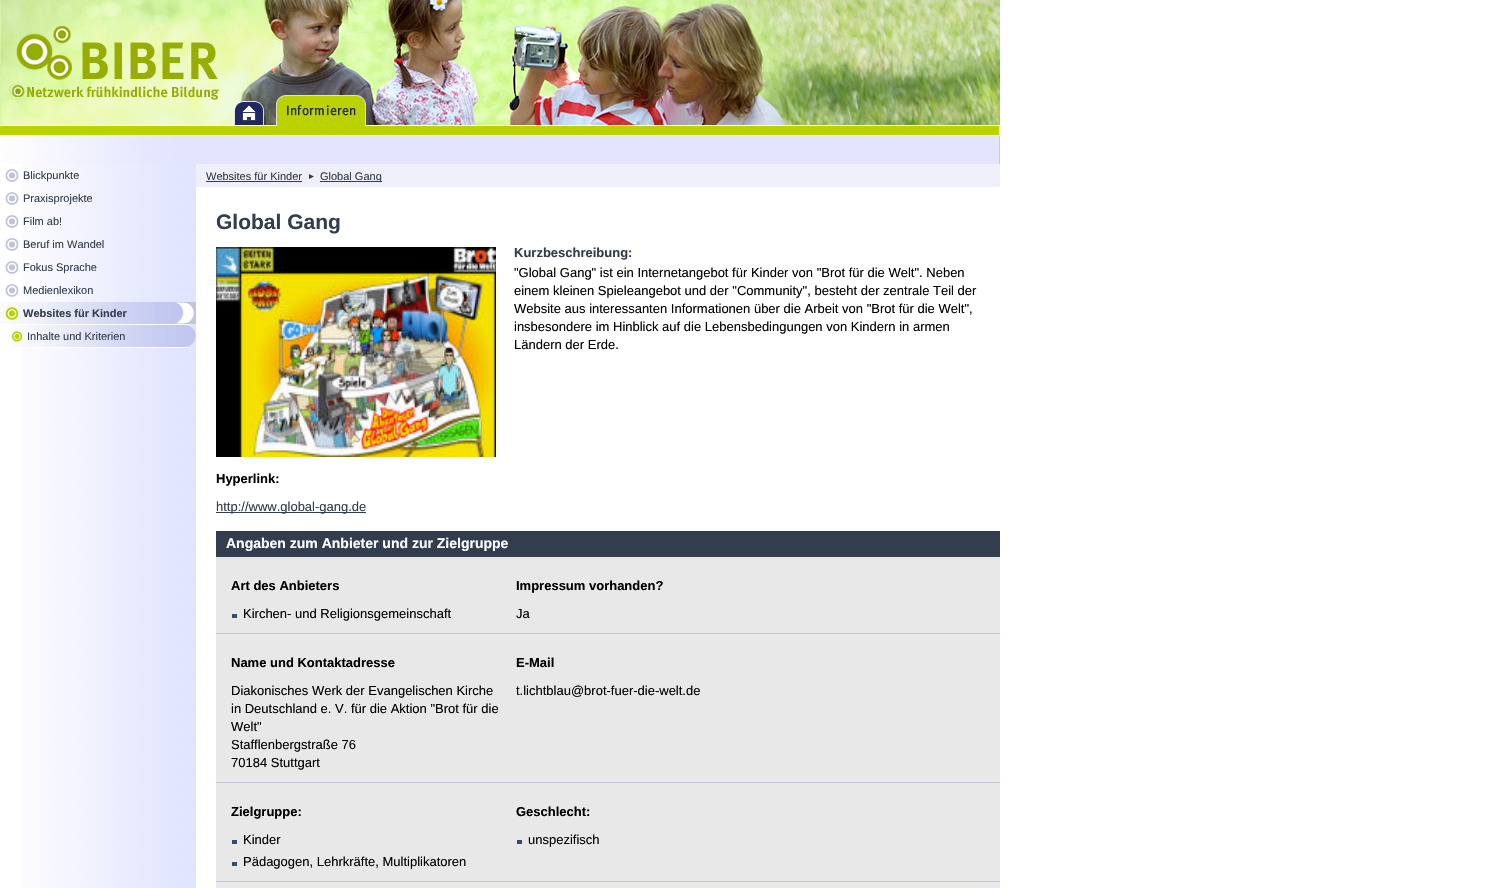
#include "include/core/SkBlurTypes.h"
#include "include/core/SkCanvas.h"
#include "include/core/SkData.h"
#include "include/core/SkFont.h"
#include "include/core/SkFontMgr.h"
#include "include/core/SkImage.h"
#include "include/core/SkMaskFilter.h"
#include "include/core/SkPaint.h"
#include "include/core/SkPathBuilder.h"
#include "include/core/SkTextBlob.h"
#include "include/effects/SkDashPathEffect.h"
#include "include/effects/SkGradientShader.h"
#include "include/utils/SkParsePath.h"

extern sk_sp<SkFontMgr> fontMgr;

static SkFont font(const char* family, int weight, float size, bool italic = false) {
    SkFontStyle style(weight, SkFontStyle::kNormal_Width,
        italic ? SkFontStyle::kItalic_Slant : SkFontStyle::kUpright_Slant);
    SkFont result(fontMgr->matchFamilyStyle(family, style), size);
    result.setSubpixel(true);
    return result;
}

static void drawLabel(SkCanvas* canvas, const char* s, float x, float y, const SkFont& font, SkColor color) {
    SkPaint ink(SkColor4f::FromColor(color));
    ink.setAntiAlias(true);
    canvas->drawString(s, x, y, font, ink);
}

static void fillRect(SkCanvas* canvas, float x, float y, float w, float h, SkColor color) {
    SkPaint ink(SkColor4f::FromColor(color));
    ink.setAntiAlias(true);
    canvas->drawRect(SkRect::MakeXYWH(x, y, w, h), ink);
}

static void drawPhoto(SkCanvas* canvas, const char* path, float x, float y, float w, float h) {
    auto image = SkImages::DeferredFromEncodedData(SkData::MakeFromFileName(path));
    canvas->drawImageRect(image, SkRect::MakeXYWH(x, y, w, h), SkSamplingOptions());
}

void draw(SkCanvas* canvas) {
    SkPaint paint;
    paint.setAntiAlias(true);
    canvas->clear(0xFFFFFFFF);
    drawPhoto(canvas, "assets/img1.png", 22, 204, 174, 684);
    drawPhoto(canvas, "assets/img2.png", 22, 164, 174, 40);
    drawPhoto(canvas, "assets/img3.png", 0, 0, 1000, 125);
    drawPhoto(canvas, "assets/img4.png", 234, 101, 30, 24);
    drawPhoto(canvas, "assets/img5.png", 276, 95, 90, 31);
    drawPhoto(canvas, "assets/img6.png", 0, 126, 1000, 38);
    fillRect(canvas, 196, 164, 804, 23, 0xFFEEEFF8);
    drawPhoto(canvas, "assets/img7.png", 5, 169, 14, 13);
    SkFont font1 = font("Liberation Sans", 400, 11);
    drawLabel(canvas, "Blickpunkte", 23, 179, font1, 0xFF323D4D);
    drawPhoto(canvas, "assets/img7.png", 5, 192, 14, 13);
    drawLabel(canvas, "Praxisprojekte", 23, 202, font1, 0xFF323D4D);
    drawPhoto(canvas, "assets/img7.png", 5, 215, 14, 13);
    drawLabel(canvas, "Film ab!", 23, 225, font1, 0xFF323D4D);
    drawPhoto(canvas, "assets/img7.png", 5, 238, 14, 13);
    drawLabel(canvas, "Beruf im Wandel", 23, 248, font1, 0xFF323D4D);
    drawPhoto(canvas, "assets/img7.png", 5, 261, 14, 13);
    drawLabel(canvas, "Fokus Sprache", 23, 271, font1, 0xFF323D4D);
    drawPhoto(canvas, "assets/img7.png", 5, 284, 14, 13);
    drawLabel(canvas, "Medienlexikon", 23, 294, font1, 0xFF323D4D);
    drawPhoto(canvas, "assets/img8.png", 0, 302, 196, 23);
    SkFont font2 = font("Liberation Sans", 700, 11);
    drawLabel(canvas, "Websites für Kinder", 23, 317, font2, 0xFF323D4D);
    drawPhoto(canvas, "assets/img9.png", 12, 325, 184, 23);
    drawLabel(canvas, "Inhalte und Kriterien", 27, 340, font1, 0xFF323D4D);
    drawLabel(canvas, "Websites für Kinder", 206, 180, font1, 0xFF323D4D);
    fillRect(canvas, 206, 181, 96, 1, 0xFF323D4D);
    drawPhoto(canvas, "assets/img10.png", 309, 174, 5, 5);
    fillRect(canvas, 320, 181, 62, 1, 0xFF323D4D);
    canvas->save();
    canvas->clipRect(SkRect::MakeXYWH(205, 170, 809, 12));
    drawLabel(canvas, "Global Gang", 320, 180, font1, 0xFF323D4D);
    canvas->restore();
    SkFont font3 = font("Liberation Sans", 700, 21);
    drawLabel(canvas, "Global Gang", 216, 229, font3, 0xFF323D4D);
    drawPhoto(canvas, "assets/img11.png", 216, 247, 280, 210);
    SkFont font4 = font("Liberation Sans", 700, 13);
    drawLabel(canvas, "Kurzbeschreibung:", 514, 257, font4, 0xFF323D4D);
    SkFont font5 = font("Liberation Sans", 400, 13);
    drawLabel(canvas, "\"Global Gang\" ist ein Internetangebot für Kinder von \"Brot für die Welt\". Neben", 514, 277, font5, 0xFF000000);
    drawLabel(canvas, "einem kleinen Spieleangebot und der \"Community\", besteht der zentrale Teil der", 514, 295, font5, 0xFF000000);
    drawLabel(canvas, "Website aus interessanten Informationen über die Arbeit von \"Brot für die Welt\",", 514, 313, font5, 0xFF000000);
    drawLabel(canvas, "insbesondere im Hinblick auf die Lebensbedingungen von Kindern in armen", 514, 331, font5, 0xFF000000);
    drawLabel(canvas, "Ländern der Erde.", 514, 349, font5, 0xFF000000);
    drawLabel(canvas, "Hyperlink:", 216, 483, font4, 0xFF000000);
    fillRect(canvas, 216, 512, 150, 1, 0xFF323D4D);
    drawLabel(canvas, "http://www.global-gang.de", 216, 511, font5, 0xFF323D4D);
    fillRect(canvas, 216, 531, 784, 26, 0xFF323D4D);
    SkFont font6 = font("Liberation Sans", 700, 14);
    drawLabel(canvas, "Angaben zum Anbieter und zur Zielgruppe", 226, 548, font6, 0xFFFFFFFF);
    fillRect(canvas, 216, 557, 784, 76, 0xFFE8E8E8);
    fillRect(canvas, 216, 633, 784, 1, 0xFFC1C3DA);
    drawLabel(canvas, "Art des Anbieters", 231, 590, font4, 0xFF000000);
    fillRect(canvas, 232, 614, 5, 4, 0xFF364C6F);
    drawLabel(canvas, "Kirchen- und Religionsgemeinschaft", 243, 618, font5, 0xFF000000);
    drawLabel(canvas, "Impressum vorhanden?", 516, 590, font4, 0xFF000000);
    drawLabel(canvas, "Ja", 516, 618, font5, 0xFF000000);
    fillRect(canvas, 216, 634, 784, 148, 0xFFE8E8E8);
    fillRect(canvas, 216, 782, 784, 1, 0xFFC1C3DA);
    drawLabel(canvas, "Name und Kontaktadresse", 231, 667, font4, 0xFF000000);
    drawLabel(canvas, "Diakonisches Werk der Evangelischen Kirche", 231, 695, font5, 0xFF000000);
    drawLabel(canvas, "in Deutschland e. V. für die Aktion \"Brot für die", 231, 713, font5, 0xFF000000);
    drawLabel(canvas, "Welt\"", 231, 731, font5, 0xFF000000);
    drawLabel(canvas, "Stafflenbergstraße 76", 231, 749, font5, 0xFF000000);
    drawLabel(canvas, "70184 Stuttgart", 231, 767, font5, 0xFF000000);
    drawLabel(canvas, "E-Mail", 516, 667, font4, 0xFF000000);
    drawLabel(canvas, "t.lichtblau@brot-fuer-die-welt.de", 516, 695, font5, 0xFF000000);
    fillRect(canvas, 216, 783, 784, 98, 0xFFE8E8E8);
    fillRect(canvas, 216, 881, 784, 1, 0xFFC1C3DA);
    drawLabel(canvas, "Zielgruppe:", 231, 816, font4, 0xFF000000);
    fillRect(canvas, 232, 840, 5, 4, 0xFF364C6F);
    drawLabel(canvas, "Kinder", 243, 844, font5, 0xFF000000);
    fillRect(canvas, 232, 862, 5, 4, 0xFF364C6F);
    drawLabel(canvas, "Pädagogen, Lehrkräfte, Multiplikatoren", 243, 866, font5, 0xFF000000);
    drawLabel(canvas, "Geschlecht:", 516, 816, font4, 0xFF000000);
    fillRect(canvas, 517, 840, 5, 4, 0xFF364C6F);
    drawLabel(canvas, "unspezifisch", 528, 844, font5, 0xFF000000);
    fillRect(canvas, 216, 882, 784, 6, 0xFFE8E8E8);
}
